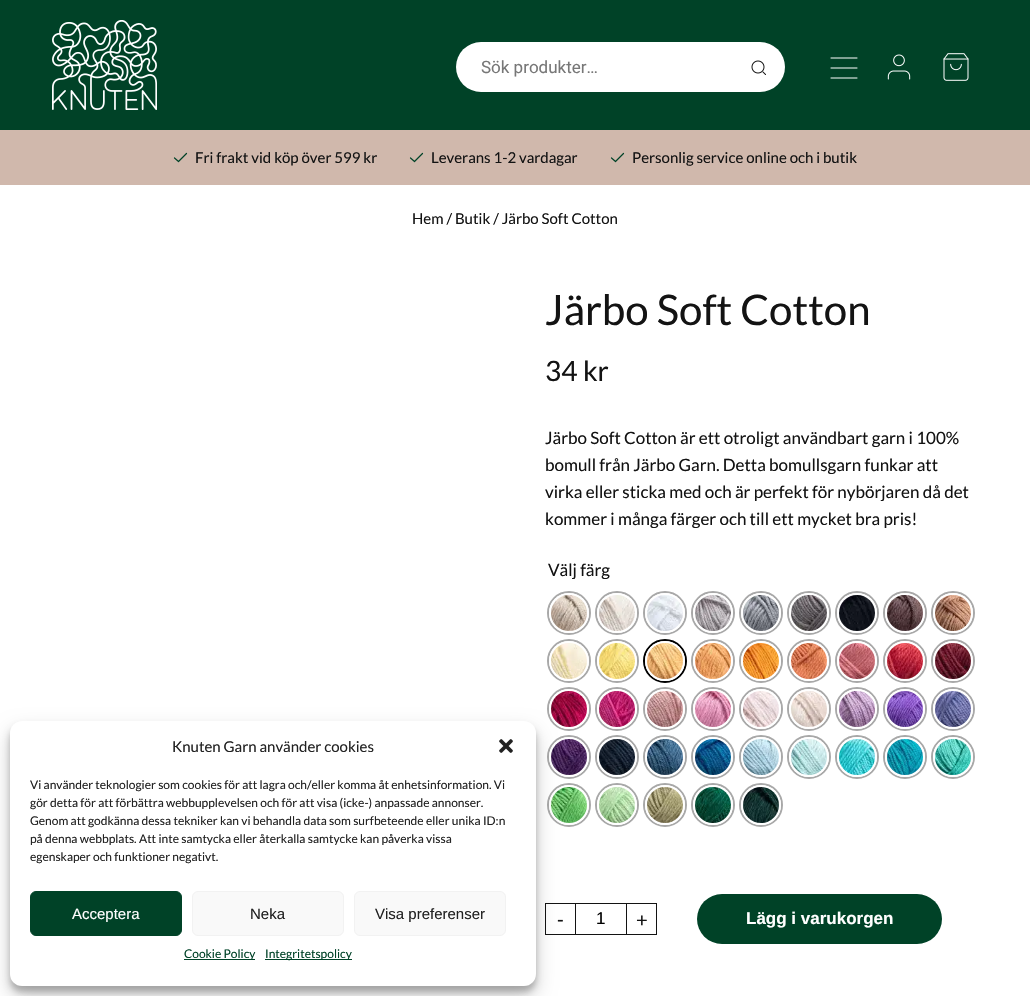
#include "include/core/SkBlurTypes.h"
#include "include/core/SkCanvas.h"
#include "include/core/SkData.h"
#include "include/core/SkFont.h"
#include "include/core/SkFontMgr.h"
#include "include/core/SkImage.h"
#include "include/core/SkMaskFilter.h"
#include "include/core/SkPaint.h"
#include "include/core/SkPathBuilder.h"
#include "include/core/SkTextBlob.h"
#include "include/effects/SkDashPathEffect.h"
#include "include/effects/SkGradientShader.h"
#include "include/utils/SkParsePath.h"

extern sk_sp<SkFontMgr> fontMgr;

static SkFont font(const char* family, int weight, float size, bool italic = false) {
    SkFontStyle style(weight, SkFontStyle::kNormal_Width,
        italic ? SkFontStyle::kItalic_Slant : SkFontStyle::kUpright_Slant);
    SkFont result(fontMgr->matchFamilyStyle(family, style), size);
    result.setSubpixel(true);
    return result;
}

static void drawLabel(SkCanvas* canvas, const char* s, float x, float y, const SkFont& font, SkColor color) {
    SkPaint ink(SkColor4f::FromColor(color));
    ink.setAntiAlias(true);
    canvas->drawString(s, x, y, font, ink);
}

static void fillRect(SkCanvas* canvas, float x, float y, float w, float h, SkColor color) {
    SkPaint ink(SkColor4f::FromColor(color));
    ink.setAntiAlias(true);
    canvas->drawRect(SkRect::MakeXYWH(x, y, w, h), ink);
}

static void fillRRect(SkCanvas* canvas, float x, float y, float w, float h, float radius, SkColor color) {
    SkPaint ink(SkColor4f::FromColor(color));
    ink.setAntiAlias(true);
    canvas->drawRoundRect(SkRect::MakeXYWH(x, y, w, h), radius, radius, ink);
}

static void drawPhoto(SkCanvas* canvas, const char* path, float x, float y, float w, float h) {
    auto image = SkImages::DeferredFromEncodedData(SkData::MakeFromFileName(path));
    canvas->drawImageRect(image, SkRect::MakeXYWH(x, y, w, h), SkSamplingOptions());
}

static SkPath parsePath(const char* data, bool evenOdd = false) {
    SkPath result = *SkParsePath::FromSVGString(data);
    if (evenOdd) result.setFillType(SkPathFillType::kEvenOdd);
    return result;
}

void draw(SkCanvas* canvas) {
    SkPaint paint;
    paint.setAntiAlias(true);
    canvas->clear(0xFFFFFFFF);
    fillRect(canvas, 0, 0, 1030, 130, 0xFF004227);
    drawPhoto(canvas, "assets/img1.png", 52, 20, 105, 90);
    fillRRect(canvas, 456, 42, 329, 50, 25, 0xFFFFFFFF);
    SkFont font1 = font("Roboto", 400, 17);
    drawLabel(canvas, "Sök produkter…", 481, 73, font1, 0xFF777777);
    drawPhoto(canvas, "assets/img2.png", 751, 60, 15, 15);
    paint.setStroke(true);
    paint.setStrokeWidth(1);
    paint.setStrokeCap(SkPaint::kRound_Cap);
    paint.setColor(0xFFFFFFFF);
    canvas->drawPath(parsePath("M831 58H857M831 68H857M831 78H857"), paint);
    drawPhoto(canvas, "assets/img3.png", 887, 54, 24, 26);
    drawPhoto(canvas, "assets/img4.png", 943, 53, 26, 28);
    fillRect(canvas, 0, 130, 1030, 55, 0xFFD0B8AC);
    paint.setStrokeWidth(1.2f);
    paint.setStrokeJoin(SkPaint::kRound_Join);
    paint.setColor(0xFF004227);
    canvas->drawPath(parsePath("M186.5 153.5L178.5 161.5L174.5 158"), paint);
    SkFont font2 = font("Lato", 400, 15);
    drawLabel(canvas, "Fri frakt vid köp över 599 kr", 195, 163, font2, 0xFF131313);
    canvas->drawPath(parsePath("M422.5 153.5L414.5 161.5L410.5 158"), paint);
    drawLabel(canvas, "Leverans 1-2 vardagar", 431, 163, font2, 0xFF131313);
    canvas->drawPath(parsePath("M623.5 153.5L615.5 161.5L611.5 158"), paint);
    drawLabel(canvas, "Personlig service online och i butik", 632, 163, font2, 0xFF131313);
    drawLabel(canvas, "Hem / Butik / Järbo Soft Cotton", 412, 224, font2, 0xFF131313);
    paint.setStrokeWidth(1);
    paint.setStrokeCap(SkPaint::kButt_Cap);
    paint.setStrokeJoin(SkPaint::kMiter_Join);
    paint.setColor(0xFF131313);
    canvas->drawRect(SkRect::MakeXYWH(545.5f, 903.5f, 111, 31), paint);
    paint.setStroke(false);
    paint.setColor(0x3B000000);
    paint.setMaskFilter(SkMaskFilter::MakeBlur(kNormal_SkBlurStyle, 3));
    canvas->drawRoundRect(SkRect::MakeXYWH(10, 727, 526, 265), 12, 12, paint);
    paint.setMaskFilter(nullptr);
    paint.setStroke(true);
    paint.setStrokeWidth(2);
    paint.setColor(0xFFA8A8A8);
    canvas->drawCircle(569, 709, 21, paint);
    paint.setStroke(false);
    paint.setColor(0xFFFFFFFF);
    canvas->drawCircle(569, 709, 20, paint);
    drawPhoto(canvas, "assets/img24.png", 551, 691, 36, 36);
    paint.setStroke(true);
    paint.setColor(0xFFA8A8A8);
    canvas->drawCircle(569, 757, 21, paint);
    paint.setStroke(false);
    paint.setColor(0xFFFFFFFF);
    canvas->drawCircle(569, 757, 20, paint);
    drawPhoto(canvas, "assets/img33.png", 551, 739, 36, 36);
    paint.setStroke(true);
    paint.setColor(0xFFA8A8A8);
    canvas->drawCircle(569, 805, 21, paint);
    paint.setStroke(false);
    paint.setColor(0xFFFFFFFF);
    canvas->drawCircle(569, 805, 20, paint);
    drawPhoto(canvas, "assets/img42.png", 551, 787, 36, 36);
    paint.setColor(0x30000000);
    paint.setMaskFilter(SkMaskFilter::MakeBlur(kNormal_SkBlurStyle, 10));
    canvas->drawRoundRect(SkRect::MakeXYWH(10, 731, 526, 265), 12, 12, paint);
    paint.setMaskFilter(nullptr);
    fillRRect(canvas, 10, 721, 526, 265, 12, 0xFFFFFFFF);
    drawLabel(canvas, "Knuten Garn använder cookies", 172, 752, font2, 0xFF222222);
    drawPhoto(canvas, "assets/img5.png", 499, 739, 14, 14);
    SkFont font3 = font("Lato", 400, 12);
    drawLabel(canvas, "Vi använder teknologier som cookies för att lagra och/eller komma åt enhetsinformation. Vi", 30, 789, font3, 0xFF222222);
    drawLabel(canvas, "gör detta för att förbättra webbupplevelsen och för att visa (icke-) anpassade annonser.", 30, 807, font3, 0xFF222222);
    drawLabel(canvas, "Genom att godkänna dessa tekniker kan vi behandla data som surfbeteende eller unika ID:n", 30, 825, font3, 0xFF222222);
    drawLabel(canvas, "på denna webbplats. Att inte samtycka eller återkalla samtycke kan påverka vissa", 30, 843, font3, 0xFF222222);
    drawLabel(canvas, "egenskaper och funktioner negativt.", 30, 861, font3, 0xFF222222);
    paint.setColor(0xFF004227);
    canvas->drawRoundRect(SkRect::MakeXYWH(30.5f, 891.5f, 151, 44), 5.5f, 5.5f, paint);
    paint.setStroke(true);
    paint.setStrokeWidth(1);
    canvas->drawRoundRect(SkRect::MakeXYWH(30.5f, 891.5f, 151, 44), 5.5f, 5.5f, paint);
    SkFont font4 = font("Liberation Sans", 400, 15);
    drawLabel(canvas, "Acceptera", 72, 919, font4, 0xFFFFFFFF);
    paint.setStroke(false);
    paint.setColor(0xFFF9F9F9);
    canvas->drawRoundRect(SkRect::MakeXYWH(192.5f, 891.5f, 151, 44), 5.5f, 5.5f, paint);
    paint.setStroke(true);
    paint.setColor(0xFFF2F2F2);
    canvas->drawRoundRect(SkRect::MakeXYWH(192.5f, 891.5f, 151, 44), 5.5f, 5.5f, paint);
    drawLabel(canvas, "Neka", 250, 919, font4, 0xFF222222);
    paint.setStroke(false);
    paint.setColor(0xFFF9F9F9);
    canvas->drawRoundRect(SkRect::MakeXYWH(354.5f, 891.5f, 151, 44), 5.5f, 5.5f, paint);
    paint.setStroke(true);
    paint.setColor(0xFFF2F2F2);
    canvas->drawRoundRect(SkRect::MakeXYWH(354.5f, 891.5f, 151, 44), 5.5f, 5.5f, paint);
    drawLabel(canvas, "Visa preferenser", 375, 919, font4, 0xFF222222);
    fillRect(canvas, 184, 959, 71, 1, 0xFF004227);
    drawLabel(canvas, "Cookie Policy", 184, 958, font3, 0xFF004227);
    fillRect(canvas, 265, 959, 87, 1, 0xFF004227);
    drawLabel(canvas, "Integritetspolicy", 265, 958, font3, 0xFF004227);
    SkFont font5 = font("Lato", 400, 42);
    drawLabel(canvas, "Järbo Soft Cotton", 545, 325, font5, 0xFF131313);
    SkFont font6 = font("Lato", 400, 28);
    drawLabel(canvas, "34 kr", 545, 381, font6, 0xFF131313);
    SkFont font7 = font("Lato", 400, 17);
    drawLabel(canvas, "Järbo Soft Cotton är ett otroligt användbart garn i 100%", 545, 444, font7, 0xFF131313);
    drawLabel(canvas, "bomull från Järbo Garn. Detta bomullsgarn funkar att", 545, 471, font7, 0xFF131313);
    drawLabel(canvas, "virka eller sticka med och är perfekt för nybörjaren då det", 545, 498, font7, 0xFF131313);
    drawLabel(canvas, "kommer i många färger och till ett mycket bra pris!", 545, 525, font7, 0xFF131313);
    drawLabel(canvas, "Välj färg", 548, 576, font7, 0xFF131313);
    paint.setStrokeWidth(2);
    paint.setColor(0xFFA8A8A8);
    canvas->drawCircle(569, 613, 21, paint);
    paint.setStroke(false);
    paint.setColor(0xFFFFFFFF);
    canvas->drawCircle(569, 613, 20, paint);
    drawPhoto(canvas, "assets/img6.png", 551, 595, 36, 36);
    paint.setStroke(true);
    paint.setColor(0xFFA8A8A8);
    canvas->drawCircle(617, 613, 21, paint);
    paint.setStroke(false);
    paint.setColor(0xFFFFFFFF);
    canvas->drawCircle(617, 613, 20, paint);
    drawPhoto(canvas, "assets/img7.png", 599, 595, 36, 36);
    paint.setStroke(true);
    paint.setColor(0xFFA8A8A8);
    canvas->drawCircle(665, 613, 21, paint);
    paint.setStroke(false);
    paint.setColor(0xFFFFFFFF);
    canvas->drawCircle(665, 613, 20, paint);
    drawPhoto(canvas, "assets/img8.png", 647, 595, 36, 36);
    paint.setStroke(true);
    paint.setColor(0xFFA8A8A8);
    canvas->drawCircle(713, 613, 21, paint);
    paint.setStroke(false);
    paint.setColor(0xFFFFFFFF);
    canvas->drawCircle(713, 613, 20, paint);
    drawPhoto(canvas, "assets/img9.png", 695, 595, 36, 36);
    paint.setStroke(true);
    paint.setColor(0xFFA8A8A8);
    canvas->drawCircle(761, 613, 21, paint);
    paint.setStroke(false);
    paint.setColor(0xFFFFFFFF);
    canvas->drawCircle(761, 613, 20, paint);
    drawPhoto(canvas, "assets/img10.png", 743, 595, 36, 36);
    paint.setStroke(true);
    paint.setColor(0xFFA8A8A8);
    canvas->drawCircle(809, 613, 21, paint);
    paint.setStroke(false);
    paint.setColor(0xFFFFFFFF);
    canvas->drawCircle(809, 613, 20, paint);
    drawPhoto(canvas, "assets/img11.png", 791, 595, 36, 36);
    paint.setStroke(true);
    paint.setColor(0xFFA8A8A8);
    canvas->drawCircle(857, 613, 21, paint);
    paint.setStroke(false);
    paint.setColor(0xFFFFFFFF);
    canvas->drawCircle(857, 613, 20, paint);
    drawPhoto(canvas, "assets/img12.png", 839, 595, 36, 36);
    paint.setStroke(true);
    paint.setColor(0xFFA8A8A8);
    canvas->drawCircle(905, 613, 21, paint);
    paint.setStroke(false);
    paint.setColor(0xFFFFFFFF);
    canvas->drawCircle(905, 613, 20, paint);
    drawPhoto(canvas, "assets/img13.png", 887, 595, 36, 36);
    paint.setStroke(true);
    paint.setColor(0xFFA8A8A8);
    canvas->drawCircle(953, 613, 21, paint);
    paint.setStroke(false);
    paint.setColor(0xFFFFFFFF);
    canvas->drawCircle(953, 613, 20, paint);
    drawPhoto(canvas, "assets/img14.png", 935, 595, 36, 36);
    paint.setStroke(true);
    paint.setColor(0xFFA8A8A8);
    canvas->drawCircle(569, 661, 21, paint);
    paint.setStroke(false);
    paint.setColor(0xFFFFFFFF);
    canvas->drawCircle(569, 661, 20, paint);
    drawPhoto(canvas, "assets/img15.png", 551, 643, 36, 36);
    paint.setStroke(true);
    paint.setColor(0xFFA8A8A8);
    canvas->drawCircle(617, 661, 21, paint);
    paint.setStroke(false);
    paint.setColor(0xFFFFFFFF);
    canvas->drawCircle(617, 661, 20, paint);
    drawPhoto(canvas, "assets/img16.png", 599, 643, 36, 36);
    paint.setStroke(true);
    paint.setColor(0xFF000000);
    canvas->drawCircle(665, 661, 21, paint);
    paint.setStroke(false);
    paint.setColor(0xFFFFFFFF);
    canvas->drawCircle(665, 661, 20, paint);
    drawPhoto(canvas, "assets/img17.png", 647, 643, 36, 36);
    paint.setStroke(true);
    paint.setColor(0xFFA8A8A8);
    canvas->drawCircle(713, 661, 21, paint);
    paint.setStroke(false);
    paint.setColor(0xFFFFFFFF);
    canvas->drawCircle(713, 661, 20, paint);
    drawPhoto(canvas, "assets/img18.png", 695, 643, 36, 36);
    paint.setStroke(true);
    paint.setColor(0xFFA8A8A8);
    canvas->drawCircle(761, 661, 21, paint);
    paint.setStroke(false);
    paint.setColor(0xFFFFFFFF);
    canvas->drawCircle(761, 661, 20, paint);
    drawPhoto(canvas, "assets/img19.png", 743, 643, 36, 36);
    paint.setStroke(true);
    paint.setColor(0xFFA8A8A8);
    canvas->drawCircle(809, 661, 21, paint);
    paint.setStroke(false);
    paint.setColor(0xFFFFFFFF);
    canvas->drawCircle(809, 661, 20, paint);
    drawPhoto(canvas, "assets/img20.png", 791, 643, 36, 36);
    paint.setStroke(true);
    paint.setColor(0xFFA8A8A8);
    canvas->drawCircle(857, 661, 21, paint);
    paint.setStroke(false);
    paint.setColor(0xFFFFFFFF);
    canvas->drawCircle(857, 661, 20, paint);
    drawPhoto(canvas, "assets/img21.png", 839, 643, 36, 36);
    paint.setStroke(true);
    paint.setColor(0xFFA8A8A8);
    canvas->drawCircle(905, 661, 21, paint);
    paint.setStroke(false);
    paint.setColor(0xFFFFFFFF);
    canvas->drawCircle(905, 661, 20, paint);
    drawPhoto(canvas, "assets/img22.png", 887, 643, 36, 36);
    paint.setStroke(true);
    paint.setColor(0xFFA8A8A8);
    canvas->drawCircle(953, 661, 21, paint);
    paint.setStroke(false);
    paint.setColor(0xFFFFFFFF);
    canvas->drawCircle(953, 661, 20, paint);
    drawPhoto(canvas, "assets/img23.png", 935, 643, 36, 36);
    paint.setStroke(true);
    paint.setColor(0xFFA8A8A8);
    canvas->drawCircle(617, 709, 21, paint);
    paint.setStroke(false);
    paint.setColor(0xFFFFFFFF);
    canvas->drawCircle(617, 709, 20, paint);
    drawPhoto(canvas, "assets/img25.png", 599, 691, 36, 36);
    paint.setStroke(true);
    paint.setColor(0xFFA8A8A8);
    canvas->drawCircle(665, 709, 21, paint);
    paint.setStroke(false);
    paint.setColor(0xFFFFFFFF);
    canvas->drawCircle(665, 709, 20, paint);
    drawPhoto(canvas, "assets/img26.png", 647, 691, 36, 36);
    paint.setStroke(true);
    paint.setColor(0xFFA8A8A8);
    canvas->drawCircle(713, 709, 21, paint);
    paint.setStroke(false);
    paint.setColor(0xFFFFFFFF);
    canvas->drawCircle(713, 709, 20, paint);
    drawPhoto(canvas, "assets/img27.png", 695, 691, 36, 36);
    paint.setStroke(true);
    paint.setColor(0xFFA8A8A8);
    canvas->drawCircle(761, 709, 21, paint);
    paint.setStroke(false);
    paint.setColor(0xFFFFFFFF);
    canvas->drawCircle(761, 709, 20, paint);
    drawPhoto(canvas, "assets/img28.png", 743, 691, 36, 36);
    paint.setStroke(true);
    paint.setColor(0xFFA8A8A8);
    canvas->drawCircle(809, 709, 21, paint);
    paint.setStroke(false);
    paint.setColor(0xFFFFFFFF);
    canvas->drawCircle(809, 709, 20, paint);
    drawPhoto(canvas, "assets/img29.png", 791, 691, 36, 36);
    paint.setStroke(true);
    paint.setColor(0xFFA8A8A8);
    canvas->drawCircle(857, 709, 21, paint);
    paint.setStroke(false);
    paint.setColor(0xFFFFFFFF);
    canvas->drawCircle(857, 709, 20, paint);
    drawPhoto(canvas, "assets/img30.png", 839, 691, 36, 36);
    paint.setStroke(true);
    paint.setColor(0xFFA8A8A8);
    canvas->drawCircle(905, 709, 21, paint);
    paint.setStroke(false);
    paint.setColor(0xFFFFFFFF);
    canvas->drawCircle(905, 709, 20, paint);
    drawPhoto(canvas, "assets/img31.png", 887, 691, 36, 36);
    paint.setStroke(true);
    paint.setColor(0xFFA8A8A8);
    canvas->drawCircle(953, 709, 21, paint);
    paint.setStroke(false);
    paint.setColor(0xFFFFFFFF);
    canvas->drawCircle(953, 709, 20, paint);
    drawPhoto(canvas, "assets/img32.png", 935, 691, 36, 36);
    paint.setStroke(true);
    paint.setColor(0xFFA8A8A8);
    canvas->drawCircle(617, 757, 21, paint);
    paint.setStroke(false);
    paint.setColor(0xFFFFFFFF);
    canvas->drawCircle(617, 757, 20, paint);
    drawPhoto(canvas, "assets/img34.png", 599, 739, 36, 36);
    paint.setStroke(true);
    paint.setColor(0xFFA8A8A8);
    canvas->drawCircle(665, 757, 21, paint);
    paint.setStroke(false);
    paint.setColor(0xFFFFFFFF);
    canvas->drawCircle(665, 757, 20, paint);
    drawPhoto(canvas, "assets/img35.png", 647, 739, 36, 36);
    paint.setStroke(true);
    paint.setColor(0xFFA8A8A8);
    canvas->drawCircle(713, 757, 21, paint);
    paint.setStroke(false);
    paint.setColor(0xFFFFFFFF);
    canvas->drawCircle(713, 757, 20, paint);
    drawPhoto(canvas, "assets/img36.png", 695, 739, 36, 36);
    paint.setStroke(true);
    paint.setColor(0xFFA8A8A8);
    canvas->drawCircle(761, 757, 21, paint);
    paint.setStroke(false);
    paint.setColor(0xFFFFFFFF);
    canvas->drawCircle(761, 757, 20, paint);
    drawPhoto(canvas, "assets/img37.png", 743, 739, 36, 36);
    paint.setStroke(true);
    paint.setColor(0xFFA8A8A8);
    canvas->drawCircle(809, 757, 21, paint);
    paint.setStroke(false);
    paint.setColor(0xFFFFFFFF);
    canvas->drawCircle(809, 757, 20, paint);
    drawPhoto(canvas, "assets/img38.png", 791, 739, 36, 36);
    paint.setStroke(true);
    paint.setColor(0xFFA8A8A8);
    canvas->drawCircle(857, 757, 21, paint);
    paint.setStroke(false);
    paint.setColor(0xFFFFFFFF);
    canvas->drawCircle(857, 757, 20, paint);
    drawPhoto(canvas, "assets/img39.png", 839, 739, 36, 36);
    paint.setStroke(true);
    paint.setColor(0xFFA8A8A8);
    canvas->drawCircle(905, 757, 21, paint);
    paint.setStroke(false);
    paint.setColor(0xFFFFFFFF);
    canvas->drawCircle(905, 757, 20, paint);
    drawPhoto(canvas, "assets/img40.png", 887, 739, 36, 36);
    paint.setStroke(true);
    paint.setColor(0xFFA8A8A8);
    canvas->drawCircle(953, 757, 21, paint);
    paint.setStroke(false);
    paint.setColor(0xFFFFFFFF);
    canvas->drawCircle(953, 757, 20, paint);
    drawPhoto(canvas, "assets/img41.png", 935, 739, 36, 36);
    paint.setStroke(true);
    paint.setColor(0xFFA8A8A8);
    canvas->drawCircle(617, 805, 21, paint);
    paint.setStroke(false);
    paint.setColor(0xFFFFFFFF);
    canvas->drawCircle(617, 805, 20, paint);
    drawPhoto(canvas, "assets/img43.png", 599, 787, 36, 36);
    paint.setStroke(true);
    paint.setColor(0xFFA8A8A8);
    canvas->drawCircle(665, 805, 21, paint);
    paint.setStroke(false);
    paint.setColor(0xFFFFFFFF);
    canvas->drawCircle(665, 805, 20, paint);
    drawPhoto(canvas, "assets/img44.png", 647, 787, 36, 36);
    paint.setStroke(true);
    paint.setColor(0xFFA8A8A8);
    canvas->drawCircle(713, 805, 21, paint);
    paint.setStroke(false);
    paint.setColor(0xFFFFFFFF);
    canvas->drawCircle(713, 805, 20, paint);
    drawPhoto(canvas, "assets/img45.png", 695, 787, 36, 36);
    paint.setStroke(true);
    paint.setColor(0xFFA8A8A8);
    canvas->drawCircle(761, 805, 21, paint);
    paint.setStroke(false);
    paint.setColor(0xFFFFFFFF);
    canvas->drawCircle(761, 805, 20, paint);
    drawPhoto(canvas, "assets/img46.png", 743, 787, 36, 36);
    fillRect(canvas, 575, 904, 1, 30, 0xFF131313);
    SkFont font8 = font("Liberation Sans", 400, 20);
    drawLabel(canvas, "-", 557, 926, font8, 0xFF131313);
    SkFont font9 = font("Liberation Sans", 400, 17);
    drawLabel(canvas, "1", 596, 924, font9, 0xFF000000);
    fillRect(canvas, 626, 904, 1, 30, 0xFF131313);
    drawLabel(canvas, "+", 636, 927, font8, 0xFF131313);
    fillRRect(canvas, 697, 894, 245, 50, 25, 0xFF004227);
    SkFont font10 = font("Liberation Sans", 700, 17);
    drawLabel(canvas, "Lägg i varukorgen", 746, 924, font10, 0xFFFFFFFF);
}
